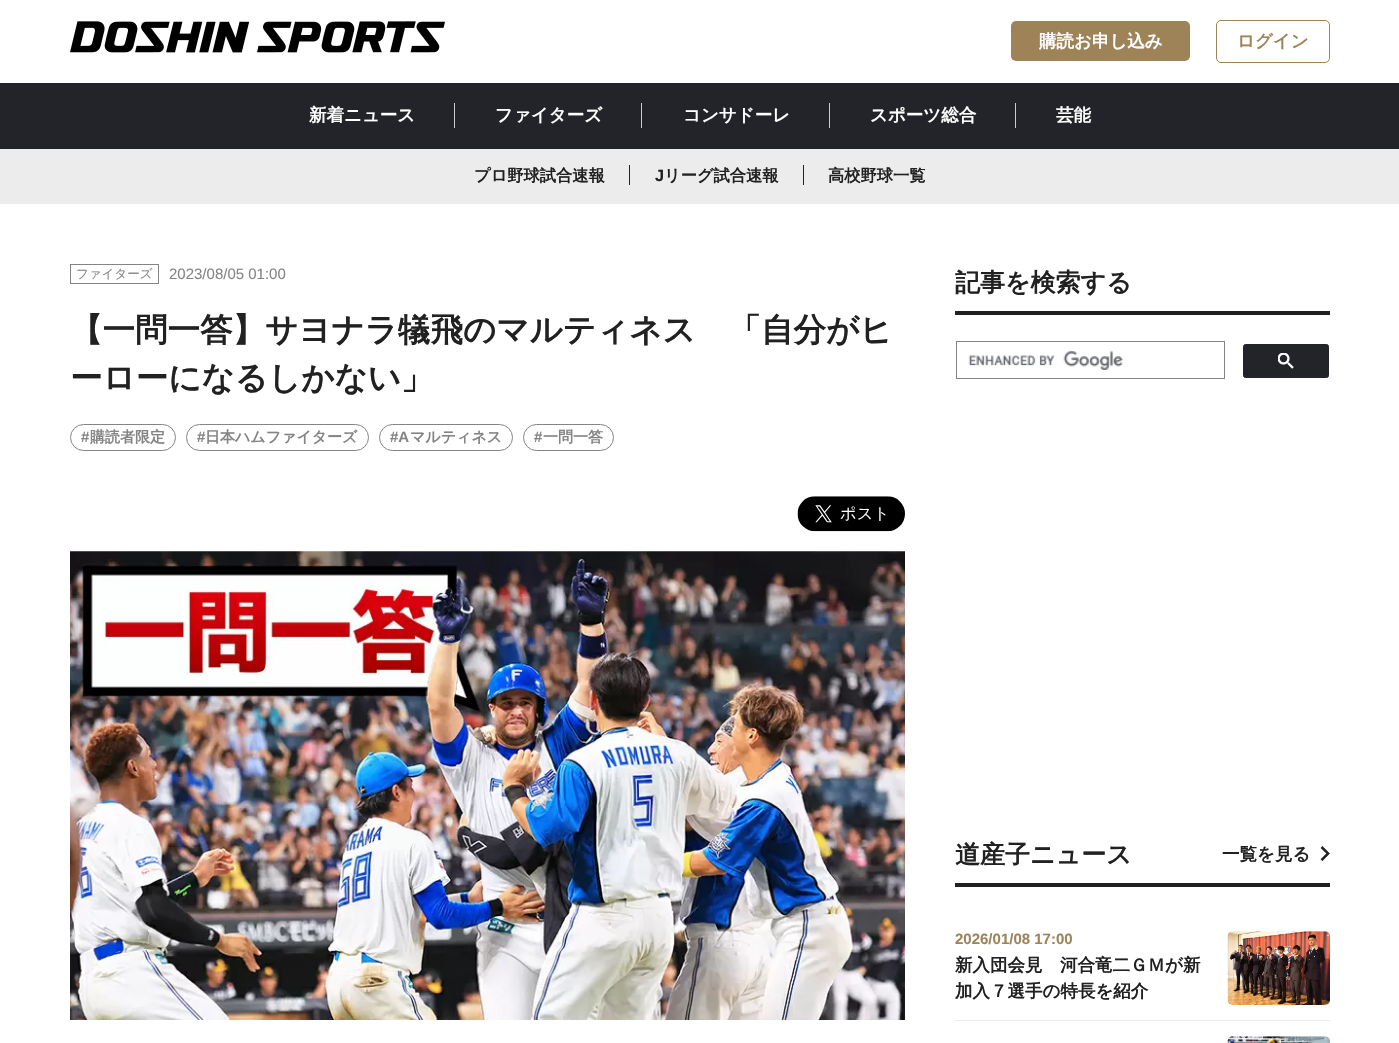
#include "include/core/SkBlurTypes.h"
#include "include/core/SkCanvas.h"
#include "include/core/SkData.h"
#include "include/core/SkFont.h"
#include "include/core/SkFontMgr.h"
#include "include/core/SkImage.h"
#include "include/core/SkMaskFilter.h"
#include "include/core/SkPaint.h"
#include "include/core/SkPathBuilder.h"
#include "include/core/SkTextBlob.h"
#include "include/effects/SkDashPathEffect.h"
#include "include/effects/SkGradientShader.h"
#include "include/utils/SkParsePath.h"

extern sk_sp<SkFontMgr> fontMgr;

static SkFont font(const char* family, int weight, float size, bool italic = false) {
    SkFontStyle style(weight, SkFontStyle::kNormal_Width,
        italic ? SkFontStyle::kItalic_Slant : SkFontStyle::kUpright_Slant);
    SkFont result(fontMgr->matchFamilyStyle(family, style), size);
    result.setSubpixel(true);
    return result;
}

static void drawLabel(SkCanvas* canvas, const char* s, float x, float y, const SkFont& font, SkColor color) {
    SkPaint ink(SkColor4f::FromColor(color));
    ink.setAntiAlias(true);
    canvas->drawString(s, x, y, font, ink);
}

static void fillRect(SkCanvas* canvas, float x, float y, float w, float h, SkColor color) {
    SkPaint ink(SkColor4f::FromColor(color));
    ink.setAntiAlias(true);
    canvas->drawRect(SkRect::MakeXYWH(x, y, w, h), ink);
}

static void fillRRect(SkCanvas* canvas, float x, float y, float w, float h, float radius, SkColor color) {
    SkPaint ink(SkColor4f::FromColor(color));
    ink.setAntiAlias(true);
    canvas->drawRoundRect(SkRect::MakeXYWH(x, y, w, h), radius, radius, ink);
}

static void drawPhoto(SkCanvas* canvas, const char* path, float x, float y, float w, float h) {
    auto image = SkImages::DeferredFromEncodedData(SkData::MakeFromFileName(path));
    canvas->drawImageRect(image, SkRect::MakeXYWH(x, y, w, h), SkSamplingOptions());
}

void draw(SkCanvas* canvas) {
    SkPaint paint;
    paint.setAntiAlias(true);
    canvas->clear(0xFFFFFFFF);
    drawPhoto(canvas, "assets/img1.png", 70, 21, 375, 32);
    fillRRect(canvas, 1011, 21, 179, 40, 5, 0xFF9E8359);
    SkFont font1 = font("WenQuanYi Zen Hei", 700, 17.5f);
    drawLabel(canvas, "購読お申し込み", 1039, 47, font1, 0xFFFFFFFF);
    paint.setStroke(true);
    paint.setStrokeWidth(1);
    paint.setColor(0xFF9E8359);
    canvas->drawRoundRect(SkRect::MakeXYWH(1216.5f, 20.5f, 113, 42), 4.5f, 4.5f, paint);
    drawLabel(canvas, "ログイン", 1237, 47, font1, 0xFF9E8359);
    fillRect(canvas, 0, 83, 1399, 66, 0xFF232429);
    drawLabel(canvas, "新着ニュース", 309, 121, font1, 0xFFFFFFFF);
    fillRect(canvas, 454, 103, 1, 25, 0xFFCCCCCC);
    drawLabel(canvas, "ファイターズ", 495, 121, font1, 0xFFFFFFFF);
    fillRect(canvas, 641, 103, 1, 25, 0xFFCCCCCC);
    drawLabel(canvas, "コンサドーレ", 683, 121, font1, 0xFFFFFFFF);
    fillRect(canvas, 829, 103, 1, 25, 0xFFCCCCCC);
    drawLabel(canvas, "スポーツ総合", 870, 121, font1, 0xFFFFFFFF);
    fillRect(canvas, 1015, 103, 1, 25, 0xFFCCCCCC);
    drawLabel(canvas, "芸能", 1056, 121, font1, 0xFFFFFFFF);
    fillRect(canvas, 0, 149, 1399, 55, 0xFFECECEC);
    SkFont font2 = font("WenQuanYi Zen Hei", 700, 16.25f);
    drawLabel(canvas, "プロ野球試合速報", 474, 181, font2, 0xFF212121);
    fillRect(canvas, 629, 165, 1, 20, 0xFF232429);
    SkFont font3 = font("Liberation Sans", 700, 16.25f);
    drawLabel(canvas, "J", 655, 181, font3, 0xFF212121);
    drawLabel(canvas, "リーグ試合速報", 664, 181, font2, 0xFF212121);
    fillRect(canvas, 803, 165, 1, 20, 0xFF232429);
    drawLabel(canvas, "高校野球一覧", 828, 181, font2, 0xFF212121);
    paint.setColor(0xFF848484);
    canvas->drawRect(SkRect::MakeXYWH(70.5f, 264.5f, 88, 19), paint);
    SkFont font4 = font("WenQuanYi Zen Hei", 500, 12.5f);
    drawLabel(canvas, "ファイターズ", 76, 278, font4, 0xFF848484);
    SkFont font5 = font("Liberation Sans", 400, 15);
    drawLabel(canvas, "2023/08/05 01:00", 169, 279, font5, 0xFF848484);
    SkFont font6 = font("WenQuanYi Zen Hei", 700, 32.5f);
    drawLabel(canvas, "【一問一答】サヨナラ犠飛のマルティネス　「自分がヒ", 70, 341, font6, 0xFF212121);
    drawLabel(canvas, "ーローになるしかない」", 70, 389, font6, 0xFF212121);
    canvas->drawRoundRect(SkRect::MakeXYWH(70.5f, 424.5f, 105, 26), 13, 13, paint);
    SkFont font7 = font("Liberation Sans", 700, 15);
    drawLabel(canvas, "#", 81, 442, font7, 0xFF848484);
    SkFont font8 = font("WenQuanYi Zen Hei", 700, 15);
    drawLabel(canvas, "購読者限定", 90, 442, font8, 0xFF848484);
    canvas->drawRoundRect(SkRect::MakeXYWH(186.5f, 424.5f, 182, 26), 13, 13, paint);
    drawLabel(canvas, "#", 197, 442, font7, 0xFF848484);
    drawLabel(canvas, "日本ハムファイターズ", 205, 442, font8, 0xFF848484);
    canvas->drawRoundRect(SkRect::MakeXYWH(379.5f, 424.5f, 133, 26), 13, 13, paint);
    drawLabel(canvas, "#A", 390, 442, font7, 0xFF848484);
    drawLabel(canvas, "マルティネス", 410, 442, font8, 0xFF848484);
    canvas->drawRoundRect(SkRect::MakeXYWH(523.5f, 424.5f, 90, 26), 13, 13, paint);
    drawLabel(canvas, "#", 534, 442, font7, 0xFF848484);
    drawLabel(canvas, "一問一答", 543, 442, font8, 0xFF848484);
    drawPhoto(canvas, "assets/img2.png", 797, 496, 108, 36);
    drawPhoto(canvas, "assets/img3.png", 70, 551, 835, 469);
    fillRect(canvas, 955, 311, 375, 4, 0xFF212121);
    SkFont font9 = font("WenQuanYi Zen Hei", 700, 25);
    drawLabel(canvas, "記事を検索する", 955, 291, font9, 0xFF212121);
    canvas->drawRect(SkRect::MakeXYWH(956.5f, 341.5f, 268, 37), paint);
    drawPhoto(canvas, "assets/img4.png", 968, 351, 155, 19);
    paint.setStroke(false);
    paint.setColor(0xFF232429);
    canvas->drawRoundRect(SkRect::MakeXYWH(1243.5f, 344.5f, 85, 33), 2, 2, paint);
    paint.setStroke(true);
    canvas->drawRoundRect(SkRect::MakeXYWH(1243.5f, 344.5f, 85, 33), 2, 2, paint);
    drawPhoto(canvas, "assets/img5.png", 1278, 353, 16, 16);
    fillRect(canvas, 955, 883, 375, 4, 0xFF212121);
    drawLabel(canvas, "道産子ニュース", 955, 863, font9, 0xFF212121);
    drawLabel(canvas, "一覧を見る", 1222, 860, font1, 0xFF212121);
    drawPhoto(canvas, "assets/img6.png", 1320, 846, 10, 15);
    fillRect(canvas, 955, 1020, 375, 1, 0xFFECECEC);
    drawLabel(canvas, "2026/01/08 17:00", 955, 944, font7, 0xFF9E8359);
    drawLabel(canvas, "新入団会見　河合竜二ＧＭが新", 955, 971, font1, 0xFF212121);
    drawLabel(canvas, "加入７選手の特長を紹介", 955, 997, font1, 0xFF212121);
    drawPhoto(canvas, "assets/img7.png", 1227, 931, 103, 74);
    drawPhoto(canvas, "assets/img8.png", 1227, 1036, 103, 7);
}
